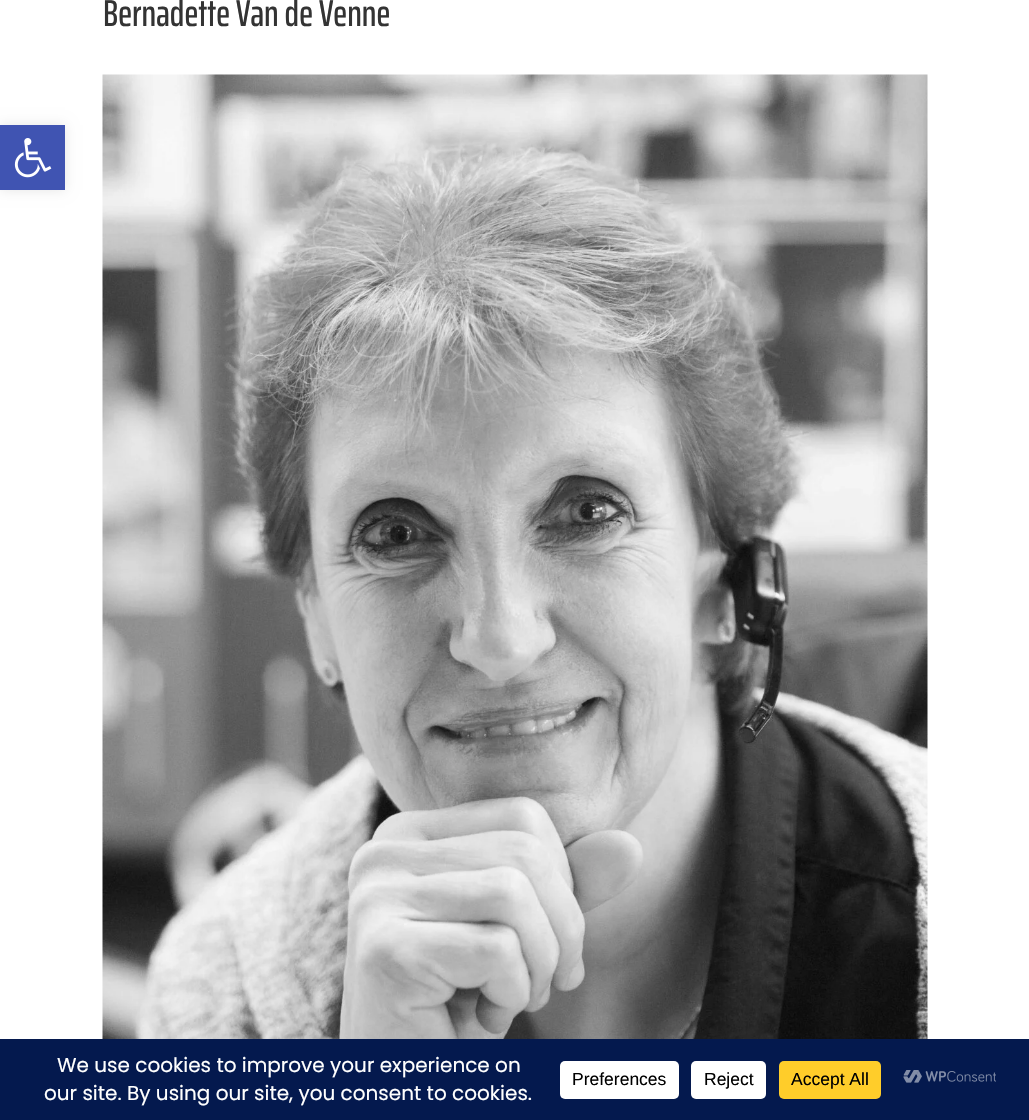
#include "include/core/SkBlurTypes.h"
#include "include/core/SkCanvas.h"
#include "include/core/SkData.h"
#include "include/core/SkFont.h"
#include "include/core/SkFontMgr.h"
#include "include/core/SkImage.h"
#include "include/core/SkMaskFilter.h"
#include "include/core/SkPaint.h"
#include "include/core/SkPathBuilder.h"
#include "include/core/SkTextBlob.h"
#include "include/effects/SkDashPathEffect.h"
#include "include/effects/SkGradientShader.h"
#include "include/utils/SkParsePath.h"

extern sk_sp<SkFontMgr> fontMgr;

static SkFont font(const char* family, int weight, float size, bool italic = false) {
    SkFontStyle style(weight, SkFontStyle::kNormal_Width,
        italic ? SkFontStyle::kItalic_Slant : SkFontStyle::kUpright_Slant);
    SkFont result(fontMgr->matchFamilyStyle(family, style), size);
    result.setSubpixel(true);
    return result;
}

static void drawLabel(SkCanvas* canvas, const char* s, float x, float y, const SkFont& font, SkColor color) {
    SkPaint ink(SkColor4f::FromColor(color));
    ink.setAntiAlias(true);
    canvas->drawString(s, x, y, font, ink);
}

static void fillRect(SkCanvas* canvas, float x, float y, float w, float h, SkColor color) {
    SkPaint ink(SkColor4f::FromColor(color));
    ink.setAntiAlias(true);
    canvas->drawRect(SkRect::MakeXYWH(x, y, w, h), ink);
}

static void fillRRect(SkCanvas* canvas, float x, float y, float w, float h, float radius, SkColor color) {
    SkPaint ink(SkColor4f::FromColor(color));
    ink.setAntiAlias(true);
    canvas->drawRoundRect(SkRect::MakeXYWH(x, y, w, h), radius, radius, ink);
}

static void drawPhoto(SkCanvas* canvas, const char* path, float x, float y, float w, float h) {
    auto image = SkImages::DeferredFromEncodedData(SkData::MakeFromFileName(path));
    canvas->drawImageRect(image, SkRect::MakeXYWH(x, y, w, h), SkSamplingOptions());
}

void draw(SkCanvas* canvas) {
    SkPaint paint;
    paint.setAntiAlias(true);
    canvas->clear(0xFFFFFFFF);
    SkFont font1 = font("Saira ExtraCondensed", 500, 37.5f);
    drawLabel(canvas, "Bernadette Van de Venne", 103, 26, font1, 0xFF333333);
    drawPhoto(canvas, "assets/img1.png", 102, 74, 826, 965);
    paint.setColor(0x1A000000);
    paint.setMaskFilter(SkMaskFilter::MakeBlur(kNormal_SkBlurStyle, 6));
    canvas->drawRect(SkRect::MakeXYWH(0, 125, 65, 65), paint);
    paint.setMaskFilter(nullptr);
    fillRect(canvas, 0, 125, 65, 65, 0xFF4054B2);
    drawPhoto(canvas, "assets/img2.png", 14, 138, 38, 40);
    fillRect(canvas, 0, 1039, 1029, 81, 0xFF04194E);
    SkFont font2 = font("Poppins", 400, 20);
    drawLabel(canvas, "We use cookies to improve your experience on", 57, 1072, font2, 0xFFFFFFFF);
    drawLabel(canvas, "our site. By using our site, you consent to cookies.", 44, 1100, font2, 0xFFFFFFFF);
    fillRRect(canvas, 560, 1061, 119, 38, 5, 0xFFFFFFFF);
    SkFont font3 = font("Liberation Sans", 400, 17.5f);
    drawLabel(canvas, "Preferences", 572, 1085, font3, 0xFF000000);
    fillRRect(canvas, 691, 1061, 75, 38, 5, 0xFFFFFFFF);
    drawLabel(canvas, "Reject", 704, 1085, font3, 0xFF000000);
    fillRRect(canvas, 779, 1061, 102, 38, 5, 0xFFFFCD2A);
    drawLabel(canvas, "Accept All", 791, 1085, font3, 0xFF000000);
    drawPhoto(canvas, "assets/img3.png", 903, 1070, 93, 13);
}
